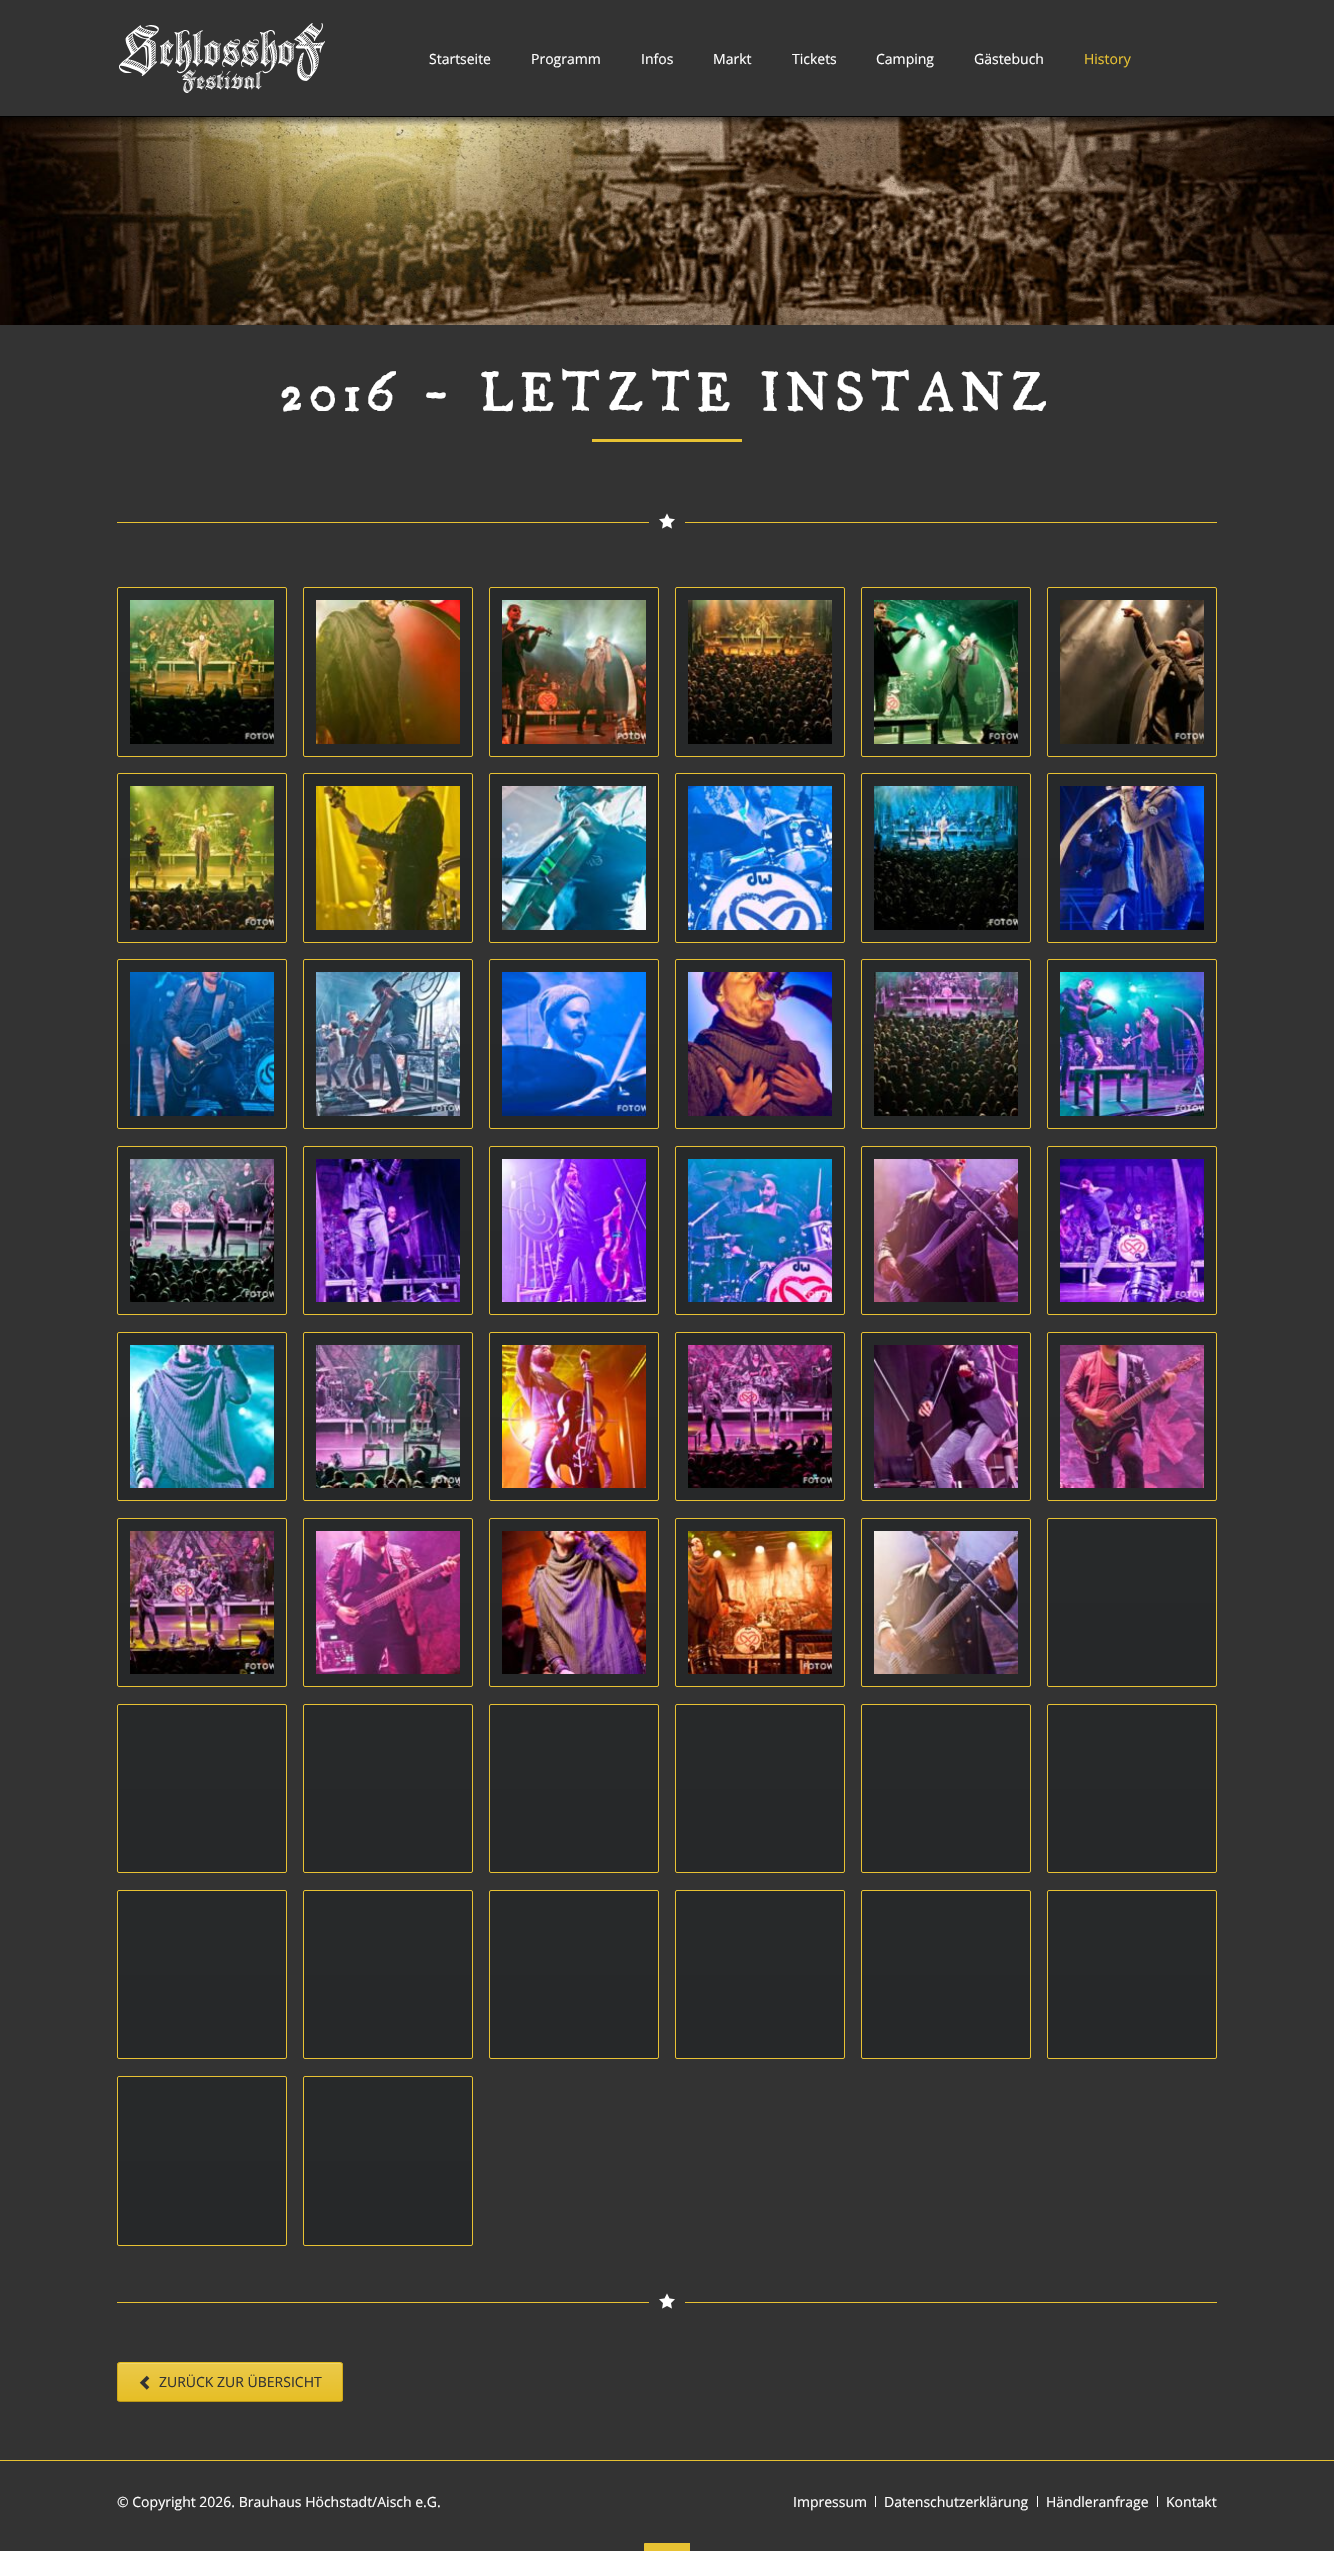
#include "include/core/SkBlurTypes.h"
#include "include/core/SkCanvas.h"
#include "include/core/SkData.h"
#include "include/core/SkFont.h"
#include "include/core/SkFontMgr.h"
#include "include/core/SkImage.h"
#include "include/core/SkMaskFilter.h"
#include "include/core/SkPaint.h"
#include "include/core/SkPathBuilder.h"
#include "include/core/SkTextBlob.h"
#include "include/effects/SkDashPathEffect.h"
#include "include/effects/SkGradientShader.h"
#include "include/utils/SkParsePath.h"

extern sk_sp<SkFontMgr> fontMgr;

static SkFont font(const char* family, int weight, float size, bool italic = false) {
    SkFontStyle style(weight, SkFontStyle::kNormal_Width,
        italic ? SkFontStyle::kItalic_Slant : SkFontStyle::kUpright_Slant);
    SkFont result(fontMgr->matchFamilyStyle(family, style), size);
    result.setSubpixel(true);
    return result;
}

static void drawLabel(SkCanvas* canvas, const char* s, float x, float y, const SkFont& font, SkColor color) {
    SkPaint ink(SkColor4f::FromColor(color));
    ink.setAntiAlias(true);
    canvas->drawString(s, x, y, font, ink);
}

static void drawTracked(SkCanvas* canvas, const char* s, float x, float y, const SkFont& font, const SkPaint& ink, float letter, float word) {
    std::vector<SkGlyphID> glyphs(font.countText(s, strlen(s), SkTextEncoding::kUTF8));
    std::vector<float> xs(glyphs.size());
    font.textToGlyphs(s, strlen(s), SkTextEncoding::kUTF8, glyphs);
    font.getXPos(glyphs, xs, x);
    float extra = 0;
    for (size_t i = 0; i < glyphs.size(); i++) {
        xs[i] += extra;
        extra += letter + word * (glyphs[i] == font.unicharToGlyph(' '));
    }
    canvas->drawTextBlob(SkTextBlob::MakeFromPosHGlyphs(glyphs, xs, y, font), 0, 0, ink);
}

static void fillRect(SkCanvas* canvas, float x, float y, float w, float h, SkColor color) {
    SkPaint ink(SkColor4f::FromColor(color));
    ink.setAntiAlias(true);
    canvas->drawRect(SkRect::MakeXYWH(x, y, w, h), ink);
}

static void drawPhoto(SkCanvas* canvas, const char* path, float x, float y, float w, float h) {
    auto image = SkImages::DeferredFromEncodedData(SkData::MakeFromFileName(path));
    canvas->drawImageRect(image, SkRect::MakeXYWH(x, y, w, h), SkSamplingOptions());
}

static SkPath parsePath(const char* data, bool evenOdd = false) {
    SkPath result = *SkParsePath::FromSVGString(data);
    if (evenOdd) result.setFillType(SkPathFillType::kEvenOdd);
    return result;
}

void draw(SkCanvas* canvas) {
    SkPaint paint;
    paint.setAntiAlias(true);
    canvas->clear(0xFF333333);
    drawPhoto(canvas, "assets/img2.png", 0, 117, 1334, 208);
    canvas->save();
    canvas->clipRect(SkRect::MakeXYWH(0, 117, 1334, 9));
    paint.setColor(0x99000000);
    paint.setMaskFilter(SkMaskFilter::MakeBlur(kNormal_SkBlurStyle, 3));
    canvas->drawRect(SkRect::MakeXYWH(0, 4, 1334, 117), paint);
    paint.setMaskFilter(nullptr);
    canvas->restore();
    fillRect(canvas, 0, 116, 1334, 1, 0xFF000000);
    drawPhoto(canvas, "assets/img1.png", 119, 23, 206, 70);
    SkFont font1 = font("Open Sans", 400, 14);
    drawLabel(canvas, "Startseite", 429, 64, font1, 0xFFFFFFFF);
    drawLabel(canvas, "Programm", 531, 64, font1, 0xFFFFFFFF);
    drawLabel(canvas, "Infos", 641, 64, font1, 0xFFFFFFFF);
    drawLabel(canvas, "Markt", 713, 64, font1, 0xFFFFFFFF);
    drawLabel(canvas, "Tickets", 792, 64, font1, 0xFFFFFFFF);
    drawLabel(canvas, "Camping", 876, 64, font1, 0xFFFFFFFF);
    drawLabel(canvas, "Gästebuch", 974, 64, font1, 0xFFFFFFFF);
    drawLabel(canvas, "History", 1084, 64, font1, 0xFFE8C233);
    SkFont font2 = font("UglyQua", 700, 48);
    paint.setColor(0xFFFFFFFF);
    drawTracked(canvas, "2016 - LETZTE INSTANZ", 280, 411, font2, paint, 8, 0);
    fillRect(canvas, 592, 439, 150, 3, 0xFFE8C233);
    fillRect(canvas, 117, 522, 1100, 1, 0xFFE8C233);
    fillRect(canvas, 649, 522, 36, 1, 0xFF333333);
    drawPhoto(canvas, "assets/img3.png", 659, 513, 16, 16);
    canvas->save();
    canvas->clipPath(parsePath("M119 587H285C286 587 287 588 287 589V755C287 756 286 757 285 757H119C118 757 117 756 117 755V589C117 588 118 587 119 587Z"), true);
    {
        const SkColor colors[] = {0xFF27292A, 0xFF262829};
        const float stops[] = {0, 1};
        const SkPoint ends[] = {{202, 588}, {202, 756}};
        paint.setShader(SkGradientShader::MakeLinear(ends, colors, stops, 2, SkTileMode::kClamp));
        paint.setAlpha(255);
    }
    canvas->drawRect(SkRect::MakeXYWH(117, 588, 170, 168), paint);
    canvas->restore();
    paint.setStroke(true);
    paint.setStrokeWidth(1);
    paint.setShader(nullptr);
    paint.setColor(0xFFE8C233);
    canvas->drawRoundRect(SkRect::MakeXYWH(117.5f, 587.5f, 169, 169), 1.5f, 1.5f, paint);
    drawPhoto(canvas, "assets/img4.png", 130, 600, 144, 144);
    canvas->save();
    canvas->clipPath(parsePath("M305 587H471C472 587 473 588 473 589V755C473 756 472 757 471 757H305C304 757 303 756 303 755V589C303 588 304 587 305 587Z"), true);
    paint.setStroke(false);
    {
        const SkColor colors[] = {0xFF27292A, 0xFF262829};
        const float stops[] = {0, 1};
        const SkPoint ends[] = {{388, 588}, {388, 756}};
        paint.setShader(SkGradientShader::MakeLinear(ends, colors, stops, 2, SkTileMode::kClamp));
        paint.setAlpha(255);
    }
    canvas->drawRect(SkRect::MakeXYWH(303, 588, 170, 168), paint);
    canvas->restore();
    paint.setStroke(true);
    paint.setShader(nullptr);
    paint.setColor(0xFFE8C233);
    canvas->drawRoundRect(SkRect::MakeXYWH(303.5f, 587.5f, 169, 169), 1.5f, 1.5f, paint);
    drawPhoto(canvas, "assets/img5.png", 316, 600, 144, 144);
    canvas->save();
    canvas->clipPath(parsePath("M491 587H657C658 587 659 588 659 589V755C659 756 658 757 657 757H491C490 757 489 756 489 755V589C489 588 490 587 491 587Z"), true);
    paint.setStroke(false);
    {
        const SkColor colors[] = {0xFF27292A, 0xFF262829};
        const float stops[] = {0, 1};
        const SkPoint ends[] = {{574, 588}, {574, 756}};
        paint.setShader(SkGradientShader::MakeLinear(ends, colors, stops, 2, SkTileMode::kClamp));
        paint.setAlpha(255);
    }
    canvas->drawRect(SkRect::MakeXYWH(489, 588, 170, 168), paint);
    canvas->restore();
    paint.setStroke(true);
    paint.setShader(nullptr);
    paint.setColor(0xFFE8C233);
    canvas->drawRoundRect(SkRect::MakeXYWH(489.5f, 587.5f, 169, 169), 1.5f, 1.5f, paint);
    drawPhoto(canvas, "assets/img6.png", 502, 600, 144, 144);
    canvas->save();
    canvas->clipPath(parsePath("M677 587H843C844 587 845 588 845 589V755C845 756 844 757 843 757H677C676 757 675 756 675 755V589C675 588 676 587 677 587Z"), true);
    paint.setStroke(false);
    {
        const SkColor colors[] = {0xFF27292A, 0xFF262829};
        const float stops[] = {0, 1};
        const SkPoint ends[] = {{760, 588}, {760, 756}};
        paint.setShader(SkGradientShader::MakeLinear(ends, colors, stops, 2, SkTileMode::kClamp));
        paint.setAlpha(255);
    }
    canvas->drawRect(SkRect::MakeXYWH(675, 588, 170, 168), paint);
    canvas->restore();
    paint.setStroke(true);
    paint.setShader(nullptr);
    paint.setColor(0xFFE8C233);
    canvas->drawRoundRect(SkRect::MakeXYWH(675.5f, 587.5f, 169, 169), 1.5f, 1.5f, paint);
    drawPhoto(canvas, "assets/img7.png", 688, 600, 144, 144);
    canvas->save();
    canvas->clipPath(parsePath("M863 587H1029C1030 587 1031 588 1031 589V755C1031 756 1030 757 1029 757H863C862 757 861 756 861 755V589C861 588 862 587 863 587Z"), true);
    paint.setStroke(false);
    {
        const SkColor colors[] = {0xFF27292A, 0xFF262829};
        const float stops[] = {0, 1};
        const SkPoint ends[] = {{946, 588}, {946, 756}};
        paint.setShader(SkGradientShader::MakeLinear(ends, colors, stops, 2, SkTileMode::kClamp));
        paint.setAlpha(255);
    }
    canvas->drawRect(SkRect::MakeXYWH(861, 588, 170, 168), paint);
    canvas->restore();
    paint.setStroke(true);
    paint.setShader(nullptr);
    paint.setColor(0xFFE8C233);
    canvas->drawRoundRect(SkRect::MakeXYWH(861.5f, 587.5f, 169, 169), 1.5f, 1.5f, paint);
    drawPhoto(canvas, "assets/img8.png", 874, 600, 144, 144);
    canvas->save();
    canvas->clipPath(parsePath("M1049 587H1215C1216 587 1217 588 1217 589V755C1217 756 1216 757 1215 757H1049C1048 757 1047 756 1047 755V589C1047 588 1048 587 1049 587Z"), true);
    paint.setStroke(false);
    {
        const SkColor colors[] = {0xFF27292A, 0xFF262829};
        const float stops[] = {0, 1};
        const SkPoint ends[] = {{1132, 588}, {1132, 756}};
        paint.setShader(SkGradientShader::MakeLinear(ends, colors, stops, 2, SkTileMode::kClamp));
        paint.setAlpha(255);
    }
    canvas->drawRect(SkRect::MakeXYWH(1047, 588, 170, 168), paint);
    canvas->restore();
    paint.setStroke(true);
    paint.setShader(nullptr);
    paint.setColor(0xFFE8C233);
    canvas->drawRoundRect(SkRect::MakeXYWH(1047.5f, 587.5f, 169, 169), 1.5f, 1.5f, paint);
    drawPhoto(canvas, "assets/img9.png", 1060, 600, 144, 144);
    canvas->save();
    canvas->clipPath(parsePath("M119 773H285C286 773 287 774 287 775V941C287 942 286 943 285 943H119C118 943 117 942 117 941V775C117 774 118 773 119 773Z"), true);
    paint.setStroke(false);
    {
        const SkColor colors[] = {0xFF27292A, 0xFF262829};
        const float stops[] = {0, 1};
        const SkPoint ends[] = {{202, 774}, {202, 942}};
        paint.setShader(SkGradientShader::MakeLinear(ends, colors, stops, 2, SkTileMode::kClamp));
        paint.setAlpha(255);
    }
    canvas->drawRect(SkRect::MakeXYWH(117, 774, 170, 168), paint);
    canvas->restore();
    paint.setStroke(true);
    paint.setShader(nullptr);
    paint.setColor(0xFFE8C233);
    canvas->drawRoundRect(SkRect::MakeXYWH(117.5f, 773.5f, 169, 169), 1.5f, 1.5f, paint);
    drawPhoto(canvas, "assets/img10.png", 130, 786, 144, 144);
    canvas->save();
    canvas->clipPath(parsePath("M305 773H471C472 773 473 774 473 775V941C473 942 472 943 471 943H305C304 943 303 942 303 941V775C303 774 304 773 305 773Z"), true);
    paint.setStroke(false);
    {
        const SkColor colors[] = {0xFF27292A, 0xFF262829};
        const float stops[] = {0, 1};
        const SkPoint ends[] = {{388, 774}, {388, 942}};
        paint.setShader(SkGradientShader::MakeLinear(ends, colors, stops, 2, SkTileMode::kClamp));
        paint.setAlpha(255);
    }
    canvas->drawRect(SkRect::MakeXYWH(303, 774, 170, 168), paint);
    canvas->restore();
    paint.setStroke(true);
    paint.setShader(nullptr);
    paint.setColor(0xFFE8C233);
    canvas->drawRoundRect(SkRect::MakeXYWH(303.5f, 773.5f, 169, 169), 1.5f, 1.5f, paint);
    drawPhoto(canvas, "assets/img11.png", 316, 786, 144, 144);
    canvas->save();
    canvas->clipPath(parsePath("M491 773H657C658 773 659 774 659 775V941C659 942 658 943 657 943H491C490 943 489 942 489 941V775C489 774 490 773 491 773Z"), true);
    paint.setStroke(false);
    {
        const SkColor colors[] = {0xFF27292A, 0xFF262829};
        const float stops[] = {0, 1};
        const SkPoint ends[] = {{574, 774}, {574, 942}};
        paint.setShader(SkGradientShader::MakeLinear(ends, colors, stops, 2, SkTileMode::kClamp));
        paint.setAlpha(255);
    }
    canvas->drawRect(SkRect::MakeXYWH(489, 774, 170, 168), paint);
    canvas->restore();
    paint.setStroke(true);
    paint.setShader(nullptr);
    paint.setColor(0xFFE8C233);
    canvas->drawRoundRect(SkRect::MakeXYWH(489.5f, 773.5f, 169, 169), 1.5f, 1.5f, paint);
    drawPhoto(canvas, "assets/img12.png", 502, 786, 144, 144);
    canvas->save();
    canvas->clipPath(parsePath("M677 773H843C844 773 845 774 845 775V941C845 942 844 943 843 943H677C676 943 675 942 675 941V775C675 774 676 773 677 773Z"), true);
    paint.setStroke(false);
    {
        const SkColor colors[] = {0xFF27292A, 0xFF262829};
        const float stops[] = {0, 1};
        const SkPoint ends[] = {{760, 774}, {760, 942}};
        paint.setShader(SkGradientShader::MakeLinear(ends, colors, stops, 2, SkTileMode::kClamp));
        paint.setAlpha(255);
    }
    canvas->drawRect(SkRect::MakeXYWH(675, 774, 170, 168), paint);
    canvas->restore();
    paint.setStroke(true);
    paint.setShader(nullptr);
    paint.setColor(0xFFE8C233);
    canvas->drawRoundRect(SkRect::MakeXYWH(675.5f, 773.5f, 169, 169), 1.5f, 1.5f, paint);
    drawPhoto(canvas, "assets/img13.png", 688, 786, 144, 144);
    canvas->save();
    canvas->clipPath(parsePath("M863 773H1029C1030 773 1031 774 1031 775V941C1031 942 1030 943 1029 943H863C862 943 861 942 861 941V775C861 774 862 773 863 773Z"), true);
    paint.setStroke(false);
    {
        const SkColor colors[] = {0xFF27292A, 0xFF262829};
        const float stops[] = {0, 1};
        const SkPoint ends[] = {{946, 774}, {946, 942}};
        paint.setShader(SkGradientShader::MakeLinear(ends, colors, stops, 2, SkTileMode::kClamp));
        paint.setAlpha(255);
    }
    canvas->drawRect(SkRect::MakeXYWH(861, 774, 170, 168), paint);
    canvas->restore();
    paint.setStroke(true);
    paint.setShader(nullptr);
    paint.setColor(0xFFE8C233);
    canvas->drawRoundRect(SkRect::MakeXYWH(861.5f, 773.5f, 169, 169), 1.5f, 1.5f, paint);
    drawPhoto(canvas, "assets/img14.png", 874, 786, 144, 144);
    canvas->save();
    canvas->clipPath(parsePath("M1049 773H1215C1216 773 1217 774 1217 775V941C1217 942 1216 943 1215 943H1049C1048 943 1047 942 1047 941V775C1047 774 1048 773 1049 773Z"), true);
    paint.setStroke(false);
    {
        const SkColor colors[] = {0xFF27292A, 0xFF262829};
        const float stops[] = {0, 1};
        const SkPoint ends[] = {{1132, 774}, {1132, 942}};
        paint.setShader(SkGradientShader::MakeLinear(ends, colors, stops, 2, SkTileMode::kClamp));
        paint.setAlpha(255);
    }
    canvas->drawRect(SkRect::MakeXYWH(1047, 774, 170, 168), paint);
    canvas->restore();
    paint.setStroke(true);
    paint.setShader(nullptr);
    paint.setColor(0xFFE8C233);
    canvas->drawRoundRect(SkRect::MakeXYWH(1047.5f, 773.5f, 169, 169), 1.5f, 1.5f, paint);
    drawPhoto(canvas, "assets/img15.png", 1060, 786, 144, 144);
    canvas->save();
    canvas->clipPath(parsePath("M119 959H285C286 959 287 960 287 961V1127C287 1128 286 1129 285 1129H119C118 1129 117 1128 117 1127V961C117 960 118 959 119 959Z"), true);
    paint.setStroke(false);
    {
        const SkColor colors[] = {0xFF27292A, 0xFF262829};
        const float stops[] = {0, 1};
        const SkPoint ends[] = {{202, 960}, {202, 1128}};
        paint.setShader(SkGradientShader::MakeLinear(ends, colors, stops, 2, SkTileMode::kClamp));
        paint.setAlpha(255);
    }
    canvas->drawRect(SkRect::MakeXYWH(117, 960, 170, 168), paint);
    canvas->restore();
    paint.setStroke(true);
    paint.setShader(nullptr);
    paint.setColor(0xFFE8C233);
    canvas->drawRoundRect(SkRect::MakeXYWH(117.5f, 959.5f, 169, 169), 1.5f, 1.5f, paint);
    drawPhoto(canvas, "assets/img16.png", 130, 972, 144, 144);
    canvas->save();
    canvas->clipPath(parsePath("M305 959H471C472 959 473 960 473 961V1127C473 1128 472 1129 471 1129H305C304 1129 303 1128 303 1127V961C303 960 304 959 305 959Z"), true);
    paint.setStroke(false);
    {
        const SkColor colors[] = {0xFF27292A, 0xFF262829};
        const float stops[] = {0, 1};
        const SkPoint ends[] = {{388, 960}, {388, 1128}};
        paint.setShader(SkGradientShader::MakeLinear(ends, colors, stops, 2, SkTileMode::kClamp));
        paint.setAlpha(255);
    }
    canvas->drawRect(SkRect::MakeXYWH(303, 960, 170, 168), paint);
    canvas->restore();
    paint.setStroke(true);
    paint.setShader(nullptr);
    paint.setColor(0xFFE8C233);
    canvas->drawRoundRect(SkRect::MakeXYWH(303.5f, 959.5f, 169, 169), 1.5f, 1.5f, paint);
    drawPhoto(canvas, "assets/img17.png", 316, 972, 144, 144);
    canvas->save();
    canvas->clipPath(parsePath("M491 959H657C658 959 659 960 659 961V1127C659 1128 658 1129 657 1129H491C490 1129 489 1128 489 1127V961C489 960 490 959 491 959Z"), true);
    paint.setStroke(false);
    {
        const SkColor colors[] = {0xFF27292A, 0xFF262829};
        const float stops[] = {0, 1};
        const SkPoint ends[] = {{574, 960}, {574, 1128}};
        paint.setShader(SkGradientShader::MakeLinear(ends, colors, stops, 2, SkTileMode::kClamp));
        paint.setAlpha(255);
    }
    canvas->drawRect(SkRect::MakeXYWH(489, 960, 170, 168), paint);
    canvas->restore();
    paint.setStroke(true);
    paint.setShader(nullptr);
    paint.setColor(0xFFE8C233);
    canvas->drawRoundRect(SkRect::MakeXYWH(489.5f, 959.5f, 169, 169), 1.5f, 1.5f, paint);
    drawPhoto(canvas, "assets/img18.png", 502, 972, 144, 144);
    canvas->save();
    canvas->clipPath(parsePath("M677 959H843C844 959 845 960 845 961V1127C845 1128 844 1129 843 1129H677C676 1129 675 1128 675 1127V961C675 960 676 959 677 959Z"), true);
    paint.setStroke(false);
    {
        const SkColor colors[] = {0xFF27292A, 0xFF262829};
        const float stops[] = {0, 1};
        const SkPoint ends[] = {{760, 960}, {760, 1128}};
        paint.setShader(SkGradientShader::MakeLinear(ends, colors, stops, 2, SkTileMode::kClamp));
        paint.setAlpha(255);
    }
    canvas->drawRect(SkRect::MakeXYWH(675, 960, 170, 168), paint);
    canvas->restore();
    paint.setStroke(true);
    paint.setShader(nullptr);
    paint.setColor(0xFFE8C233);
    canvas->drawRoundRect(SkRect::MakeXYWH(675.5f, 959.5f, 169, 169), 1.5f, 1.5f, paint);
    drawPhoto(canvas, "assets/img19.png", 688, 972, 144, 144);
    canvas->save();
    canvas->clipPath(parsePath("M863 959H1029C1030 959 1031 960 1031 961V1127C1031 1128 1030 1129 1029 1129H863C862 1129 861 1128 861 1127V961C861 960 862 959 863 959Z"), true);
    paint.setStroke(false);
    {
        const SkColor colors[] = {0xFF27292A, 0xFF262829};
        const float stops[] = {0, 1};
        const SkPoint ends[] = {{946, 960}, {946, 1128}};
        paint.setShader(SkGradientShader::MakeLinear(ends, colors, stops, 2, SkTileMode::kClamp));
        paint.setAlpha(255);
    }
    canvas->drawRect(SkRect::MakeXYWH(861, 960, 170, 168), paint);
    canvas->restore();
    paint.setStroke(true);
    paint.setShader(nullptr);
    paint.setColor(0xFFE8C233);
    canvas->drawRoundRect(SkRect::MakeXYWH(861.5f, 959.5f, 169, 169), 1.5f, 1.5f, paint);
    drawPhoto(canvas, "assets/img20.png", 874, 972, 144, 144);
    canvas->save();
    canvas->clipPath(parsePath("M1049 959H1215C1216 959 1217 960 1217 961V1127C1217 1128 1216 1129 1215 1129H1049C1048 1129 1047 1128 1047 1127V961C1047 960 1048 959 1049 959Z"), true);
    paint.setStroke(false);
    {
        const SkColor colors[] = {0xFF27292A, 0xFF262829};
        const float stops[] = {0, 1};
        const SkPoint ends[] = {{1132, 960}, {1132, 1128}};
        paint.setShader(SkGradientShader::MakeLinear(ends, colors, stops, 2, SkTileMode::kClamp));
        paint.setAlpha(255);
    }
    canvas->drawRect(SkRect::MakeXYWH(1047, 960, 170, 168), paint);
    canvas->restore();
    paint.setStroke(true);
    paint.setShader(nullptr);
    paint.setColor(0xFFE8C233);
    canvas->drawRoundRect(SkRect::MakeXYWH(1047.5f, 959.5f, 169, 169), 1.5f, 1.5f, paint);
    drawPhoto(canvas, "assets/img21.png", 1060, 972, 144, 144);
    canvas->save();
    canvas->clipPath(parsePath("M119 1146H285C286 1146 287 1147 287 1148V1313C287 1314 286 1315 285 1315H119C118 1315 117 1314 117 1313V1148C117 1147 118 1146 119 1146Z"), true);
    paint.setStroke(false);
    {
        const SkColor colors[] = {0xFF27292A, 0xFF262829};
        const float stops[] = {0, 1};
        const SkPoint ends[] = {{202, 1147}, {202, 1314}};
        paint.setShader(SkGradientShader::MakeLinear(ends, colors, stops, 2, SkTileMode::kClamp));
        paint.setAlpha(255);
    }
    canvas->drawRect(SkRect::MakeXYWH(117, 1147, 170, 167), paint);
    canvas->restore();
    paint.setStroke(true);
    paint.setShader(nullptr);
    paint.setColor(0xFFE8C233);
    canvas->drawRoundRect(SkRect::MakeXYWH(117.5f, 1146.5f, 169, 168), 1.5f, 1.5f, paint);
    drawPhoto(canvas, "assets/img22.png", 130, 1159, 144, 143);
    canvas->save();
    canvas->clipPath(parsePath("M305 1146H471C472 1146 473 1147 473 1148V1313C473 1314 472 1315 471 1315H305C304 1315 303 1314 303 1313V1148C303 1147 304 1146 305 1146Z"), true);
    paint.setStroke(false);
    {
        const SkColor colors[] = {0xFF27292A, 0xFF262829};
        const float stops[] = {0, 1};
        const SkPoint ends[] = {{388, 1147}, {388, 1314}};
        paint.setShader(SkGradientShader::MakeLinear(ends, colors, stops, 2, SkTileMode::kClamp));
        paint.setAlpha(255);
    }
    canvas->drawRect(SkRect::MakeXYWH(303, 1147, 170, 167), paint);
    canvas->restore();
    paint.setStroke(true);
    paint.setShader(nullptr);
    paint.setColor(0xFFE8C233);
    canvas->drawRoundRect(SkRect::MakeXYWH(303.5f, 1146.5f, 169, 168), 1.5f, 1.5f, paint);
    drawPhoto(canvas, "assets/img23.png", 316, 1159, 144, 143);
    canvas->save();
    canvas->clipPath(parsePath("M491 1146H657C658 1146 659 1147 659 1148V1313C659 1314 658 1315 657 1315H491C490 1315 489 1314 489 1313V1148C489 1147 490 1146 491 1146Z"), true);
    paint.setStroke(false);
    {
        const SkColor colors[] = {0xFF27292A, 0xFF262829};
        const float stops[] = {0, 1};
        const SkPoint ends[] = {{574, 1147}, {574, 1314}};
        paint.setShader(SkGradientShader::MakeLinear(ends, colors, stops, 2, SkTileMode::kClamp));
        paint.setAlpha(255);
    }
    canvas->drawRect(SkRect::MakeXYWH(489, 1147, 170, 167), paint);
    canvas->restore();
    paint.setStroke(true);
    paint.setShader(nullptr);
    paint.setColor(0xFFE8C233);
    canvas->drawRoundRect(SkRect::MakeXYWH(489.5f, 1146.5f, 169, 168), 1.5f, 1.5f, paint);
    drawPhoto(canvas, "assets/img24.png", 502, 1159, 144, 143);
    canvas->save();
    canvas->clipPath(parsePath("M677 1146H843C844 1146 845 1147 845 1148V1313C845 1314 844 1315 843 1315H677C676 1315 675 1314 675 1313V1148C675 1147 676 1146 677 1146Z"), true);
    paint.setStroke(false);
    {
        const SkColor colors[] = {0xFF27292A, 0xFF262829};
        const float stops[] = {0, 1};
        const SkPoint ends[] = {{760, 1147}, {760, 1314}};
        paint.setShader(SkGradientShader::MakeLinear(ends, colors, stops, 2, SkTileMode::kClamp));
        paint.setAlpha(255);
    }
    canvas->drawRect(SkRect::MakeXYWH(675, 1147, 170, 167), paint);
    canvas->restore();
    paint.setStroke(true);
    paint.setShader(nullptr);
    paint.setColor(0xFFE8C233);
    canvas->drawRoundRect(SkRect::MakeXYWH(675.5f, 1146.5f, 169, 168), 1.5f, 1.5f, paint);
    drawPhoto(canvas, "assets/img25.png", 688, 1159, 144, 143);
    canvas->save();
    canvas->clipPath(parsePath("M863 1146H1029C1030 1146 1031 1147 1031 1148V1313C1031 1314 1030 1315 1029 1315H863C862 1315 861 1314 861 1313V1148C861 1147 862 1146 863 1146Z"), true);
    paint.setStroke(false);
    {
        const SkColor colors[] = {0xFF27292A, 0xFF262829};
        const float stops[] = {0, 1};
        const SkPoint ends[] = {{946, 1147}, {946, 1314}};
        paint.setShader(SkGradientShader::MakeLinear(ends, colors, stops, 2, SkTileMode::kClamp));
        paint.setAlpha(255);
    }
    canvas->drawRect(SkRect::MakeXYWH(861, 1147, 170, 167), paint);
    canvas->restore();
    paint.setStroke(true);
    paint.setShader(nullptr);
    paint.setColor(0xFFE8C233);
    canvas->drawRoundRect(SkRect::MakeXYWH(861.5f, 1146.5f, 169, 168), 1.5f, 1.5f, paint);
    drawPhoto(canvas, "assets/img26.png", 874, 1159, 144, 143);
    canvas->save();
    canvas->clipPath(parsePath("M1049 1146H1215C1216 1146 1217 1147 1217 1148V1313C1217 1314 1216 1315 1215 1315H1049C1048 1315 1047 1314 1047 1313V1148C1047 1147 1048 1146 1049 1146Z"), true);
    paint.setStroke(false);
    {
        const SkColor colors[] = {0xFF27292A, 0xFF262829};
        const float stops[] = {0, 1};
        const SkPoint ends[] = {{1132, 1147}, {1132, 1314}};
        paint.setShader(SkGradientShader::MakeLinear(ends, colors, stops, 2, SkTileMode::kClamp));
        paint.setAlpha(255);
    }
    canvas->drawRect(SkRect::MakeXYWH(1047, 1147, 170, 167), paint);
    canvas->restore();
    paint.setStroke(true);
    paint.setShader(nullptr);
    paint.setColor(0xFFE8C233);
    canvas->drawRoundRect(SkRect::MakeXYWH(1047.5f, 1146.5f, 169, 168), 1.5f, 1.5f, paint);
    drawPhoto(canvas, "assets/img27.png", 1060, 1159, 144, 143);
    canvas->save();
    canvas->clipPath(parsePath("M119 1332H285C286 1332 287 1333 287 1334V1499C287 1500 286 1501 285 1501H119C118 1501 117 1500 117 1499V1334C117 1333 118 1332 119 1332Z"), true);
    paint.setStroke(false);
    {
        const SkColor colors[] = {0xFF27292A, 0xFF262829};
        const float stops[] = {0, 1};
        const SkPoint ends[] = {{202, 1333}, {202, 1500}};
        paint.setShader(SkGradientShader::MakeLinear(ends, colors, stops, 2, SkTileMode::kClamp));
        paint.setAlpha(255);
    }
    canvas->drawRect(SkRect::MakeXYWH(117, 1333, 170, 167), paint);
    canvas->restore();
    paint.setStroke(true);
    paint.setShader(nullptr);
    paint.setColor(0xFFE8C233);
    canvas->drawRoundRect(SkRect::MakeXYWH(117.5f, 1332.5f, 169, 168), 1.5f, 1.5f, paint);
    drawPhoto(canvas, "assets/img28.png", 130, 1345, 144, 143);
    canvas->save();
    canvas->clipPath(parsePath("M305 1332H471C472 1332 473 1333 473 1334V1499C473 1500 472 1501 471 1501H305C304 1501 303 1500 303 1499V1334C303 1333 304 1332 305 1332Z"), true);
    paint.setStroke(false);
    {
        const SkColor colors[] = {0xFF27292A, 0xFF262829};
        const float stops[] = {0, 1};
        const SkPoint ends[] = {{388, 1333}, {388, 1500}};
        paint.setShader(SkGradientShader::MakeLinear(ends, colors, stops, 2, SkTileMode::kClamp));
        paint.setAlpha(255);
    }
    canvas->drawRect(SkRect::MakeXYWH(303, 1333, 170, 167), paint);
    canvas->restore();
    paint.setStroke(true);
    paint.setShader(nullptr);
    paint.setColor(0xFFE8C233);
    canvas->drawRoundRect(SkRect::MakeXYWH(303.5f, 1332.5f, 169, 168), 1.5f, 1.5f, paint);
    drawPhoto(canvas, "assets/img29.png", 316, 1345, 144, 143);
    canvas->save();
    canvas->clipPath(parsePath("M491 1332H657C658 1332 659 1333 659 1334V1499C659 1500 658 1501 657 1501H491C490 1501 489 1500 489 1499V1334C489 1333 490 1332 491 1332Z"), true);
    paint.setStroke(false);
    {
        const SkColor colors[] = {0xFF27292A, 0xFF262829};
        const float stops[] = {0, 1};
        const SkPoint ends[] = {{574, 1333}, {574, 1500}};
        paint.setShader(SkGradientShader::MakeLinear(ends, colors, stops, 2, SkTileMode::kClamp));
        paint.setAlpha(255);
    }
    canvas->drawRect(SkRect::MakeXYWH(489, 1333, 170, 167), paint);
    canvas->restore();
    paint.setStroke(true);
    paint.setShader(nullptr);
    paint.setColor(0xFFE8C233);
    canvas->drawRoundRect(SkRect::MakeXYWH(489.5f, 1332.5f, 169, 168), 1.5f, 1.5f, paint);
    drawPhoto(canvas, "assets/img30.png", 502, 1345, 144, 143);
    canvas->save();
    canvas->clipPath(parsePath("M677 1332H843C844 1332 845 1333 845 1334V1499C845 1500 844 1501 843 1501H677C676 1501 675 1500 675 1499V1334C675 1333 676 1332 677 1332Z"), true);
    paint.setStroke(false);
    {
        const SkColor colors[] = {0xFF27292A, 0xFF262829};
        const float stops[] = {0, 1};
        const SkPoint ends[] = {{760, 1333}, {760, 1500}};
        paint.setShader(SkGradientShader::MakeLinear(ends, colors, stops, 2, SkTileMode::kClamp));
        paint.setAlpha(255);
    }
    canvas->drawRect(SkRect::MakeXYWH(675, 1333, 170, 167), paint);
    canvas->restore();
    paint.setStroke(true);
    paint.setShader(nullptr);
    paint.setColor(0xFFE8C233);
    canvas->drawRoundRect(SkRect::MakeXYWH(675.5f, 1332.5f, 169, 168), 1.5f, 1.5f, paint);
    drawPhoto(canvas, "assets/img31.png", 688, 1345, 144, 143);
    canvas->save();
    canvas->clipPath(parsePath("M863 1332H1029C1030 1332 1031 1333 1031 1334V1499C1031 1500 1030 1501 1029 1501H863C862 1501 861 1500 861 1499V1334C861 1333 862 1332 863 1332Z"), true);
    paint.setStroke(false);
    {
        const SkColor colors[] = {0xFF27292A, 0xFF262829};
        const float stops[] = {0, 1};
        const SkPoint ends[] = {{946, 1333}, {946, 1500}};
        paint.setShader(SkGradientShader::MakeLinear(ends, colors, stops, 2, SkTileMode::kClamp));
        paint.setAlpha(255);
    }
    canvas->drawRect(SkRect::MakeXYWH(861, 1333, 170, 167), paint);
    canvas->restore();
    paint.setStroke(true);
    paint.setShader(nullptr);
    paint.setColor(0xFFE8C233);
    canvas->drawRoundRect(SkRect::MakeXYWH(861.5f, 1332.5f, 169, 168), 1.5f, 1.5f, paint);
    drawPhoto(canvas, "assets/img32.png", 874, 1345, 144, 143);
    canvas->save();
    canvas->clipPath(parsePath("M1049 1332H1215C1216 1332 1217 1333 1217 1334V1499C1217 1500 1216 1501 1215 1501H1049C1048 1501 1047 1500 1047 1499V1334C1047 1333 1048 1332 1049 1332Z"), true);
    paint.setStroke(false);
    {
        const SkColor colors[] = {0xFF27292A, 0xFF262829};
        const float stops[] = {0, 1};
        const SkPoint ends[] = {{1132, 1333}, {1132, 1500}};
        paint.setShader(SkGradientShader::MakeLinear(ends, colors, stops, 2, SkTileMode::kClamp));
        paint.setAlpha(255);
    }
    canvas->drawRect(SkRect::MakeXYWH(1047, 1333, 170, 167), paint);
    canvas->restore();
    paint.setStroke(true);
    paint.setShader(nullptr);
    paint.setColor(0xFFE8C233);
    canvas->drawRoundRect(SkRect::MakeXYWH(1047.5f, 1332.5f, 169, 168), 1.5f, 1.5f, paint);
    drawPhoto(canvas, "assets/img33.png", 1060, 1345, 144, 143);
    canvas->save();
    canvas->clipPath(parsePath("M119 1518H285C286 1518 287 1519 287 1520V1685C287 1686 286 1687 285 1687H119C118 1687 117 1686 117 1685V1520C117 1519 118 1518 119 1518Z"), true);
    paint.setStroke(false);
    {
        const SkColor colors[] = {0xFF27292A, 0xFF262829};
        const float stops[] = {0, 1};
        const SkPoint ends[] = {{202, 1519}, {202, 1686}};
        paint.setShader(SkGradientShader::MakeLinear(ends, colors, stops, 2, SkTileMode::kClamp));
        paint.setAlpha(255);
    }
    canvas->drawRect(SkRect::MakeXYWH(117, 1519, 170, 167), paint);
    canvas->restore();
    paint.setStroke(true);
    paint.setShader(nullptr);
    paint.setColor(0xFFE8C233);
    canvas->drawRoundRect(SkRect::MakeXYWH(117.5f, 1518.5f, 169, 168), 1.5f, 1.5f, paint);
    drawPhoto(canvas, "assets/img34.png", 130, 1531, 144, 143);
    canvas->save();
    canvas->clipPath(parsePath("M305 1518H471C472 1518 473 1519 473 1520V1685C473 1686 472 1687 471 1687H305C304 1687 303 1686 303 1685V1520C303 1519 304 1518 305 1518Z"), true);
    paint.setStroke(false);
    {
        const SkColor colors[] = {0xFF27292A, 0xFF262829};
        const float stops[] = {0, 1};
        const SkPoint ends[] = {{388, 1519}, {388, 1686}};
        paint.setShader(SkGradientShader::MakeLinear(ends, colors, stops, 2, SkTileMode::kClamp));
        paint.setAlpha(255);
    }
    canvas->drawRect(SkRect::MakeXYWH(303, 1519, 170, 167), paint);
    canvas->restore();
    paint.setStroke(true);
    paint.setShader(nullptr);
    paint.setColor(0xFFE8C233);
    canvas->drawRoundRect(SkRect::MakeXYWH(303.5f, 1518.5f, 169, 168), 1.5f, 1.5f, paint);
    drawPhoto(canvas, "assets/img35.png", 316, 1531, 144, 143);
    canvas->save();
    canvas->clipPath(parsePath("M491 1518H657C658 1518 659 1519 659 1520V1685C659 1686 658 1687 657 1687H491C490 1687 489 1686 489 1685V1520C489 1519 490 1518 491 1518Z"), true);
    paint.setStroke(false);
    {
        const SkColor colors[] = {0xFF27292A, 0xFF262829};
        const float stops[] = {0, 1};
        const SkPoint ends[] = {{574, 1519}, {574, 1686}};
        paint.setShader(SkGradientShader::MakeLinear(ends, colors, stops, 2, SkTileMode::kClamp));
        paint.setAlpha(255);
    }
    canvas->drawRect(SkRect::MakeXYWH(489, 1519, 170, 167), paint);
    canvas->restore();
    paint.setStroke(true);
    paint.setShader(nullptr);
    paint.setColor(0xFFE8C233);
    canvas->drawRoundRect(SkRect::MakeXYWH(489.5f, 1518.5f, 169, 168), 1.5f, 1.5f, paint);
    drawPhoto(canvas, "assets/img36.png", 502, 1531, 144, 143);
    canvas->save();
    canvas->clipPath(parsePath("M677 1518H843C844 1518 845 1519 845 1520V1685C845 1686 844 1687 843 1687H677C676 1687 675 1686 675 1685V1520C675 1519 676 1518 677 1518Z"), true);
    paint.setStroke(false);
    {
        const SkColor colors[] = {0xFF27292A, 0xFF262829};
        const float stops[] = {0, 1};
        const SkPoint ends[] = {{760, 1519}, {760, 1686}};
        paint.setShader(SkGradientShader::MakeLinear(ends, colors, stops, 2, SkTileMode::kClamp));
        paint.setAlpha(255);
    }
    canvas->drawRect(SkRect::MakeXYWH(675, 1519, 170, 167), paint);
    canvas->restore();
    paint.setStroke(true);
    paint.setShader(nullptr);
    paint.setColor(0xFFE8C233);
    canvas->drawRoundRect(SkRect::MakeXYWH(675.5f, 1518.5f, 169, 168), 1.5f, 1.5f, paint);
    drawPhoto(canvas, "assets/img37.png", 688, 1531, 144, 143);
    canvas->save();
    canvas->clipPath(parsePath("M863 1518H1029C1030 1518 1031 1519 1031 1520V1685C1031 1686 1030 1687 1029 1687H863C862 1687 861 1686 861 1685V1520C861 1519 862 1518 863 1518Z"), true);
    paint.setStroke(false);
    {
        const SkColor colors[] = {0xFF27292A, 0xFF262829};
        const float stops[] = {0, 1};
        const SkPoint ends[] = {{946, 1519}, {946, 1686}};
        paint.setShader(SkGradientShader::MakeLinear(ends, colors, stops, 2, SkTileMode::kClamp));
        paint.setAlpha(255);
    }
    canvas->drawRect(SkRect::MakeXYWH(861, 1519, 170, 167), paint);
    canvas->restore();
    paint.setStroke(true);
    paint.setShader(nullptr);
    paint.setColor(0xFFE8C233);
    canvas->drawRoundRect(SkRect::MakeXYWH(861.5f, 1518.5f, 169, 168), 1.5f, 1.5f, paint);
    drawPhoto(canvas, "assets/img38.png", 874, 1531, 144, 143);
    canvas->save();
    canvas->clipPath(parsePath("M1049 1518H1215C1216 1518 1217 1519 1217 1520V1685C1217 1686 1216 1687 1215 1687H1049C1048 1687 1047 1686 1047 1685V1520C1047 1519 1048 1518 1049 1518Z"), true);
    paint.setStroke(false);
    {
        const SkColor colors[] = {0xFF27292A, 0xFF262829};
        const float stops[] = {0, 1};
        const SkPoint ends[] = {{1132, 1519}, {1132, 1686}};
        paint.setShader(SkGradientShader::MakeLinear(ends, colors, stops, 2, SkTileMode::kClamp));
        paint.setAlpha(255);
    }
    canvas->drawRect(SkRect::MakeXYWH(1047, 1519, 170, 167), paint);
    canvas->restore();
    paint.setStroke(true);
    paint.setShader(nullptr);
    paint.setColor(0xFFE8C233);
    canvas->drawRoundRect(SkRect::MakeXYWH(1047.5f, 1518.5f, 169, 168), 1.5f, 1.5f, paint);
    canvas->save();
    canvas->clipPath(parsePath("M119 1704H285C286 1704 287 1705 287 1706V1871C287 1872 286 1873 285 1873H119C118 1873 117 1872 117 1871V1706C117 1705 118 1704 119 1704Z"), true);
    paint.setStroke(false);
    {
        const SkColor colors[] = {0xFF27292A, 0xFF262829};
        const float stops[] = {0, 1};
        const SkPoint ends[] = {{202, 1705}, {202, 1872}};
        paint.setShader(SkGradientShader::MakeLinear(ends, colors, stops, 2, SkTileMode::kClamp));
        paint.setAlpha(255);
    }
    canvas->drawRect(SkRect::MakeXYWH(117, 1705, 170, 167), paint);
    canvas->restore();
    paint.setStroke(true);
    paint.setShader(nullptr);
    paint.setColor(0xFFE8C233);
    canvas->drawRoundRect(SkRect::MakeXYWH(117.5f, 1704.5f, 169, 168), 1.5f, 1.5f, paint);
    canvas->save();
    canvas->clipPath(parsePath("M305 1704H471C472 1704 473 1705 473 1706V1871C473 1872 472 1873 471 1873H305C304 1873 303 1872 303 1871V1706C303 1705 304 1704 305 1704Z"), true);
    paint.setStroke(false);
    {
        const SkColor colors[] = {0xFF27292A, 0xFF262829};
        const float stops[] = {0, 1};
        const SkPoint ends[] = {{388, 1705}, {388, 1872}};
        paint.setShader(SkGradientShader::MakeLinear(ends, colors, stops, 2, SkTileMode::kClamp));
        paint.setAlpha(255);
    }
    canvas->drawRect(SkRect::MakeXYWH(303, 1705, 170, 167), paint);
    canvas->restore();
    paint.setStroke(true);
    paint.setShader(nullptr);
    paint.setColor(0xFFE8C233);
    canvas->drawRoundRect(SkRect::MakeXYWH(303.5f, 1704.5f, 169, 168), 1.5f, 1.5f, paint);
    canvas->save();
    canvas->clipPath(parsePath("M491 1704H657C658 1704 659 1705 659 1706V1871C659 1872 658 1873 657 1873H491C490 1873 489 1872 489 1871V1706C489 1705 490 1704 491 1704Z"), true);
    paint.setStroke(false);
    {
        const SkColor colors[] = {0xFF27292A, 0xFF262829};
        const float stops[] = {0, 1};
        const SkPoint ends[] = {{574, 1705}, {574, 1872}};
        paint.setShader(SkGradientShader::MakeLinear(ends, colors, stops, 2, SkTileMode::kClamp));
        paint.setAlpha(255);
    }
    canvas->drawRect(SkRect::MakeXYWH(489, 1705, 170, 167), paint);
    canvas->restore();
    paint.setStroke(true);
    paint.setShader(nullptr);
    paint.setColor(0xFFE8C233);
    canvas->drawRoundRect(SkRect::MakeXYWH(489.5f, 1704.5f, 169, 168), 1.5f, 1.5f, paint);
    canvas->save();
    canvas->clipPath(parsePath("M677 1704H843C844 1704 845 1705 845 1706V1871C845 1872 844 1873 843 1873H677C676 1873 675 1872 675 1871V1706C675 1705 676 1704 677 1704Z"), true);
    paint.setStroke(false);
    {
        const SkColor colors[] = {0xFF27292A, 0xFF262829};
        const float stops[] = {0, 1};
        const SkPoint ends[] = {{760, 1705}, {760, 1872}};
        paint.setShader(SkGradientShader::MakeLinear(ends, colors, stops, 2, SkTileMode::kClamp));
        paint.setAlpha(255);
    }
    canvas->drawRect(SkRect::MakeXYWH(675, 1705, 170, 167), paint);
    canvas->restore();
    paint.setStroke(true);
    paint.setShader(nullptr);
    paint.setColor(0xFFE8C233);
    canvas->drawRoundRect(SkRect::MakeXYWH(675.5f, 1704.5f, 169, 168), 1.5f, 1.5f, paint);
    canvas->save();
    canvas->clipPath(parsePath("M863 1704H1029C1030 1704 1031 1705 1031 1706V1871C1031 1872 1030 1873 1029 1873H863C862 1873 861 1872 861 1871V1706C861 1705 862 1704 863 1704Z"), true);
    paint.setStroke(false);
    {
        const SkColor colors[] = {0xFF27292A, 0xFF262829};
        const float stops[] = {0, 1};
        const SkPoint ends[] = {{946, 1705}, {946, 1872}};
        paint.setShader(SkGradientShader::MakeLinear(ends, colors, stops, 2, SkTileMode::kClamp));
        paint.setAlpha(255);
    }
    canvas->drawRect(SkRect::MakeXYWH(861, 1705, 170, 167), paint);
    canvas->restore();
    paint.setStroke(true);
    paint.setShader(nullptr);
    paint.setColor(0xFFE8C233);
    canvas->drawRoundRect(SkRect::MakeXYWH(861.5f, 1704.5f, 169, 168), 1.5f, 1.5f, paint);
    canvas->save();
    canvas->clipPath(parsePath("M1049 1704H1215C1216 1704 1217 1705 1217 1706V1871C1217 1872 1216 1873 1215 1873H1049C1048 1873 1047 1872 1047 1871V1706C1047 1705 1048 1704 1049 1704Z"), true);
    paint.setStroke(false);
    {
        const SkColor colors[] = {0xFF27292A, 0xFF262829};
        const float stops[] = {0, 1};
        const SkPoint ends[] = {{1132, 1705}, {1132, 1872}};
        paint.setShader(SkGradientShader::MakeLinear(ends, colors, stops, 2, SkTileMode::kClamp));
        paint.setAlpha(255);
    }
    canvas->drawRect(SkRect::MakeXYWH(1047, 1705, 170, 167), paint);
    canvas->restore();
    paint.setStroke(true);
    paint.setShader(nullptr);
    paint.setColor(0xFFE8C233);
    canvas->drawRoundRect(SkRect::MakeXYWH(1047.5f, 1704.5f, 169, 168), 1.5f, 1.5f, paint);
    canvas->save();
    canvas->clipPath(parsePath("M119 1890H285C286 1890 287 1891 287 1892V2057C287 2058 286 2059 285 2059H119C118 2059 117 2058 117 2057V1892C117 1891 118 1890 119 1890Z"), true);
    paint.setStroke(false);
    {
        const SkColor colors[] = {0xFF27292A, 0xFF262829};
        const float stops[] = {0, 1};
        const SkPoint ends[] = {{202, 1891}, {202, 2058}};
        paint.setShader(SkGradientShader::MakeLinear(ends, colors, stops, 2, SkTileMode::kClamp));
        paint.setAlpha(255);
    }
    canvas->drawRect(SkRect::MakeXYWH(117, 1891, 170, 167), paint);
    canvas->restore();
    paint.setStroke(true);
    paint.setShader(nullptr);
    paint.setColor(0xFFE8C233);
    canvas->drawRoundRect(SkRect::MakeXYWH(117.5f, 1890.5f, 169, 168), 1.5f, 1.5f, paint);
    canvas->save();
    canvas->clipPath(parsePath("M305 1890H471C472 1890 473 1891 473 1892V2057C473 2058 472 2059 471 2059H305C304 2059 303 2058 303 2057V1892C303 1891 304 1890 305 1890Z"), true);
    paint.setStroke(false);
    {
        const SkColor colors[] = {0xFF27292A, 0xFF262829};
        const float stops[] = {0, 1};
        const SkPoint ends[] = {{388, 1891}, {388, 2058}};
        paint.setShader(SkGradientShader::MakeLinear(ends, colors, stops, 2, SkTileMode::kClamp));
        paint.setAlpha(255);
    }
    canvas->drawRect(SkRect::MakeXYWH(303, 1891, 170, 167), paint);
    canvas->restore();
    paint.setStroke(true);
    paint.setShader(nullptr);
    paint.setColor(0xFFE8C233);
    canvas->drawRoundRect(SkRect::MakeXYWH(303.5f, 1890.5f, 169, 168), 1.5f, 1.5f, paint);
    canvas->save();
    canvas->clipPath(parsePath("M491 1890H657C658 1890 659 1891 659 1892V2057C659 2058 658 2059 657 2059H491C490 2059 489 2058 489 2057V1892C489 1891 490 1890 491 1890Z"), true);
    paint.setStroke(false);
    {
        const SkColor colors[] = {0xFF27292A, 0xFF262829};
        const float stops[] = {0, 1};
        const SkPoint ends[] = {{574, 1891}, {574, 2058}};
        paint.setShader(SkGradientShader::MakeLinear(ends, colors, stops, 2, SkTileMode::kClamp));
        paint.setAlpha(255);
    }
    canvas->drawRect(SkRect::MakeXYWH(489, 1891, 170, 167), paint);
    canvas->restore();
    paint.setStroke(true);
    paint.setShader(nullptr);
    paint.setColor(0xFFE8C233);
    canvas->drawRoundRect(SkRect::MakeXYWH(489.5f, 1890.5f, 169, 168), 1.5f, 1.5f, paint);
    canvas->save();
    canvas->clipPath(parsePath("M677 1890H843C844 1890 845 1891 845 1892V2057C845 2058 844 2059 843 2059H677C676 2059 675 2058 675 2057V1892C675 1891 676 1890 677 1890Z"), true);
    paint.setStroke(false);
    {
        const SkColor colors[] = {0xFF27292A, 0xFF262829};
        const float stops[] = {0, 1};
        const SkPoint ends[] = {{760, 1891}, {760, 2058}};
        paint.setShader(SkGradientShader::MakeLinear(ends, colors, stops, 2, SkTileMode::kClamp));
        paint.setAlpha(255);
    }
    canvas->drawRect(SkRect::MakeXYWH(675, 1891, 170, 167), paint);
    canvas->restore();
    paint.setStroke(true);
    paint.setShader(nullptr);
    paint.setColor(0xFFE8C233);
    canvas->drawRoundRect(SkRect::MakeXYWH(675.5f, 1890.5f, 169, 168), 1.5f, 1.5f, paint);
    canvas->save();
    canvas->clipPath(parsePath("M863 1890H1029C1030 1890 1031 1891 1031 1892V2057C1031 2058 1030 2059 1029 2059H863C862 2059 861 2058 861 2057V1892C861 1891 862 1890 863 1890Z"), true);
    paint.setStroke(false);
    {
        const SkColor colors[] = {0xFF27292A, 0xFF262829};
        const float stops[] = {0, 1};
        const SkPoint ends[] = {{946, 1891}, {946, 2058}};
        paint.setShader(SkGradientShader::MakeLinear(ends, colors, stops, 2, SkTileMode::kClamp));
        paint.setAlpha(255);
    }
    canvas->drawRect(SkRect::MakeXYWH(861, 1891, 170, 167), paint);
    canvas->restore();
    paint.setStroke(true);
    paint.setShader(nullptr);
    paint.setColor(0xFFE8C233);
    canvas->drawRoundRect(SkRect::MakeXYWH(861.5f, 1890.5f, 169, 168), 1.5f, 1.5f, paint);
    canvas->save();
    canvas->clipPath(parsePath("M1049 1890H1215C1216 1890 1217 1891 1217 1892V2057C1217 2058 1216 2059 1215 2059H1049C1048 2059 1047 2058 1047 2057V1892C1047 1891 1048 1890 1049 1890Z"), true);
    paint.setStroke(false);
    {
        const SkColor colors[] = {0xFF27292A, 0xFF262829};
        const float stops[] = {0, 1};
        const SkPoint ends[] = {{1132, 1891}, {1132, 2058}};
        paint.setShader(SkGradientShader::MakeLinear(ends, colors, stops, 2, SkTileMode::kClamp));
        paint.setAlpha(255);
    }
    canvas->drawRect(SkRect::MakeXYWH(1047, 1891, 170, 167), paint);
    canvas->restore();
    paint.setStroke(true);
    paint.setShader(nullptr);
    paint.setColor(0xFFE8C233);
    canvas->drawRoundRect(SkRect::MakeXYWH(1047.5f, 1890.5f, 169, 168), 1.5f, 1.5f, paint);
    canvas->save();
    canvas->clipPath(parsePath("M119 2076H285C286 2076 287 2077 287 2078V2244C287 2245 286 2246 285 2246H119C118 2246 117 2245 117 2244V2078C117 2077 118 2076 119 2076Z"), true);
    paint.setStroke(false);
    {
        const SkColor colors[] = {0xFF27292A, 0xFF262829};
        const float stops[] = {0, 1};
        const SkPoint ends[] = {{202, 2077}, {202, 2245}};
        paint.setShader(SkGradientShader::MakeLinear(ends, colors, stops, 2, SkTileMode::kClamp));
        paint.setAlpha(255);
    }
    canvas->drawRect(SkRect::MakeXYWH(117, 2077, 170, 168), paint);
    canvas->restore();
    paint.setStroke(true);
    paint.setShader(nullptr);
    paint.setColor(0xFFE8C233);
    canvas->drawRoundRect(SkRect::MakeXYWH(117.5f, 2076.5f, 169, 169), 1.5f, 1.5f, paint);
    canvas->save();
    canvas->clipPath(parsePath("M305 2076H471C472 2076 473 2077 473 2078V2244C473 2245 472 2246 471 2246H305C304 2246 303 2245 303 2244V2078C303 2077 304 2076 305 2076Z"), true);
    paint.setStroke(false);
    {
        const SkColor colors[] = {0xFF27292A, 0xFF262829};
        const float stops[] = {0, 1};
        const SkPoint ends[] = {{388, 2077}, {388, 2245}};
        paint.setShader(SkGradientShader::MakeLinear(ends, colors, stops, 2, SkTileMode::kClamp));
        paint.setAlpha(255);
    }
    canvas->drawRect(SkRect::MakeXYWH(303, 2077, 170, 168), paint);
    canvas->restore();
    paint.setStroke(true);
    paint.setShader(nullptr);
    paint.setColor(0xFFE8C233);
    canvas->drawRoundRect(SkRect::MakeXYWH(303.5f, 2076.5f, 169, 169), 1.5f, 1.5f, paint);
    fillRect(canvas, 117, 2302, 1100, 1, 0xFFE8C233);
    fillRect(canvas, 649, 2302, 36, 1, 0xFF333333);
    drawPhoto(canvas, "assets/img3.png", 659, 2293, 16, 16);
    canvas->save();
    canvas->clipPath(parsePath("M120 2362H340C341.5 2362 343 2363.5 343 2365V2399C343 2400.5 341.5 2402 340 2402H120C118.5 2402 117 2400.5 117 2399V2365C117 2363.5 118.5 2362 120 2362Z"), true);
    paint.setStroke(false);
    {
        const SkColor colors[] = {0xFFEBC94A, 0xFFE6BE25};
        const float stops[] = {0, 1};
        const SkPoint ends[] = {{230, 2363}, {230, 2401}};
        paint.setShader(SkGradientShader::MakeLinear(ends, colors, stops, 2, SkTileMode::kClamp));
        paint.setAlpha(255);
    }
    canvas->drawRect(SkRect::MakeXYWH(117, 2363, 226, 38), paint);
    canvas->restore();
    paint.setShader(nullptr);
    paint.setColor(0xFFEED470);
    canvas->drawPath(parsePath("M120 2364H340C341 2364 342 2365 342 2366C342 2365 342 2363 340 2363H120L119 2364L118 2366C118 2365 119 2364 120 2364Z"), paint);
    paint.setStroke(true);
    paint.setColor(0xFFE5BB1C);
    canvas->drawPath(parsePath("M118 2363L120 2362.5H340L342 2363"), paint);
    paint.setColor(0xFFD0AA18);
    canvas->drawPath(parsePath("M342 2363L342.5 2365V2399L342 2401"), paint);
    paint.setColor(0xFFBA9715);
    canvas->drawPath(parsePath("M342 2401L340 2401.5H120L118 2401"), paint);
    paint.setColor(0xFFD0AA18);
    canvas->drawPath(parsePath("M118 2401L117.5 2399V2365L118 2363"), paint);
    drawPhoto(canvas, "assets/img39.png", 139, 2375, 11, 15);
    drawLabel(canvas, "ZURÜCK ZUR ÜBERSICHT", 159, 2387, font1, 0xFF333333);
    fillRect(canvas, 0, 2460, 1334, 1, 0xFFE8C233);
    drawLabel(canvas, "© Copyright 2026. Brauhaus Höchstadt/Aisch e.G.", 117, 2507, font1, 0xFFFFFFFF);
    drawLabel(canvas, "Impressum", 793, 2507, font1, 0xFFFFFFFF);
    fillRect(canvas, 875, 2496, 1, 11, 0xFFFFFFFF);
    drawLabel(canvas, "Datenschutzerklärung", 884, 2507, font1, 0xFFFFFFFF);
    fillRect(canvas, 1037, 2496, 1, 11, 0xFFFFFFFF);
    drawLabel(canvas, "Händleranfrage", 1046, 2507, font1, 0xFFFFFFFF);
    fillRect(canvas, 1157, 2496, 1, 11, 0xFFFFFFFF);
    drawLabel(canvas, "Kontakt", 1166, 2507, font1, 0xFFFFFFFF);
    paint.setStroke(false);
    paint.setColor(0xFFE8C233);
    canvas->drawPath(parsePath("M645 2543H689C689.5 2543 690 2543.5 690 2544V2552H644V2544C644 2543.5 644.5 2543 645 2543Z"), paint);
    fillRect(canvas, 689, 2543, 1, 1, 0xFFE8C233);
}
